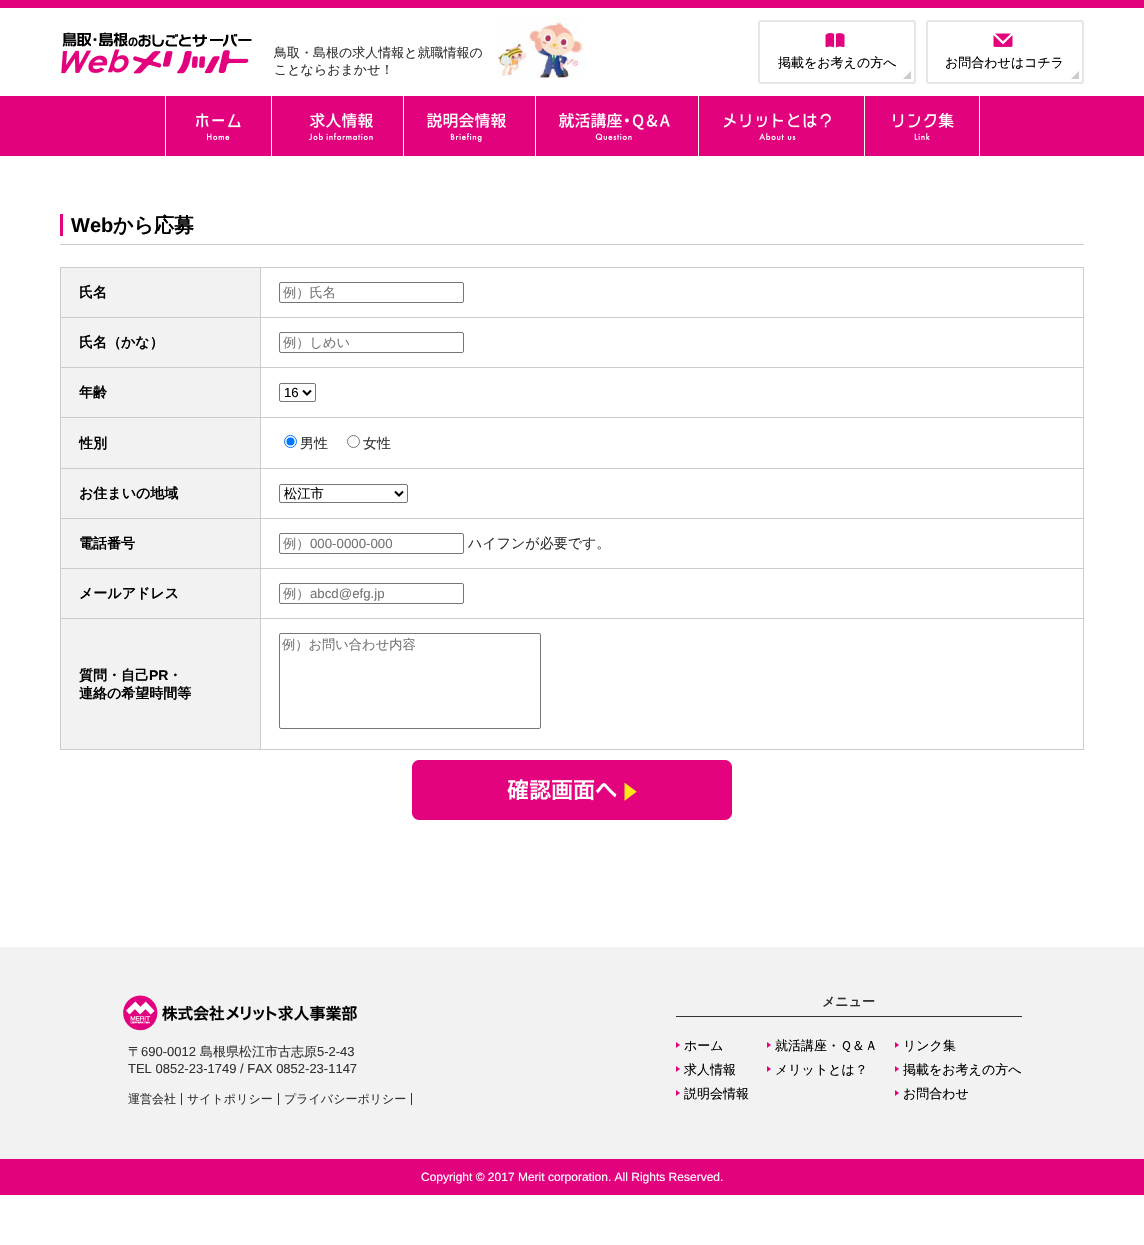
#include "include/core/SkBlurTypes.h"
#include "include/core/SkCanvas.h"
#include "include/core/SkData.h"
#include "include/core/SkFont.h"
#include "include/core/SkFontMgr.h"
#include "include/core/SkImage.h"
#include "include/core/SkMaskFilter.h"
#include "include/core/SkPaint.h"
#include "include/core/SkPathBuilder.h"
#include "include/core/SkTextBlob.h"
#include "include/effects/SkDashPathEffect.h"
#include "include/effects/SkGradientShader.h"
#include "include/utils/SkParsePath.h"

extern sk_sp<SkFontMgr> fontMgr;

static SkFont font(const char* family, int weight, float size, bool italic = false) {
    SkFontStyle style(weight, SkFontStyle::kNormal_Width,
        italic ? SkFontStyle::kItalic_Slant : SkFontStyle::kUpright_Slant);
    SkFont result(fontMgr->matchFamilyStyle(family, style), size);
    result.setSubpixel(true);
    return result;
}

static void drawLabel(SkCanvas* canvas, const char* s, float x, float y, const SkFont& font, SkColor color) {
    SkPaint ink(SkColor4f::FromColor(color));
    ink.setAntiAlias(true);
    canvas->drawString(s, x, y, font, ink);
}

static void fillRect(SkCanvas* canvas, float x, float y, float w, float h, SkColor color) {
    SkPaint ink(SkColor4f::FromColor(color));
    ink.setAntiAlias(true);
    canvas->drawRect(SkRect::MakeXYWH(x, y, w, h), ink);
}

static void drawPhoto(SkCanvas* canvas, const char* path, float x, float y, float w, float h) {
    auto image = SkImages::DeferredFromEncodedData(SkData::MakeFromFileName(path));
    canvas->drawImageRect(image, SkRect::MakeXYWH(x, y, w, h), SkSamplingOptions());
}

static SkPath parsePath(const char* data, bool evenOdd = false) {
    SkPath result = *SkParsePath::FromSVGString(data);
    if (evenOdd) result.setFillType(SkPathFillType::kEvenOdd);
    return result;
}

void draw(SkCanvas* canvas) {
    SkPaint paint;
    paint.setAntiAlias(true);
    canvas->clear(0xFFFFFFFF);
    fillRect(canvas, 0, 0, 1144, 8, 0xFFE3027E);
    drawPhoto(canvas, "assets/img1.png", 61, 32, 191, 42);
    drawPhoto(canvas, "assets/img2.png", 497, 17, 86, 62);
    SkFont font1 = font("WenQuanYi Zen Hei", 500, 13);
    drawLabel(canvas, "鳥取・島根の求人情報と就職情報の", 274, 57, font1, 0xFF333333);
    drawLabel(canvas, "ことならおまかせ！", 274, 74, font1, 0xFF333333);
    drawPhoto(canvas, "assets/img3.png", 903, 71, 8, 8);
    paint.setStroke(true);
    paint.setStrokeWidth(2);
    paint.setColor(0xFFE6E6E6);
    canvas->drawRoundRect(SkRect::MakeXYWH(759, 21, 156, 62), 2, 2, paint);
    drawPhoto(canvas, "assets/img4.png", 825, 33, 20, 15);
    drawLabel(canvas, "掲載をお考えの方へ", 778, 67, font1, 0xFF000000);
    drawPhoto(canvas, "assets/img3.png", 1071, 71, 8, 8);
    canvas->drawRoundRect(SkRect::MakeXYWH(927, 21, 156, 62), 2, 2, paint);
    drawPhoto(canvas, "assets/img5.png", 993, 33, 20, 14);
    drawLabel(canvas, "お問合わせはコチラ", 945, 67, font1, 0xFF000000);
    fillRect(canvas, 0, 96, 1144, 60, 0xFFE3027E);
    drawPhoto(canvas, "assets/img6.png", 165, 96, 76, 60);
    drawPhoto(canvas, "assets/img7.png", 271, 96, 133, 60);
    drawPhoto(canvas, "assets/img8.png", 427, 96, 109, 60);
    drawPhoto(canvas, "assets/img9.png", 558, 96, 141, 60);
    drawPhoto(canvas, "assets/img10.png", 723, 96, 142, 60);
    drawPhoto(canvas, "assets/img11.png", 893, 96, 87, 60);
    fillRect(canvas, 60, 244, 1024, 1, 0xFFCCCCCC);
    SkFont font2 = font("Liberation Sans", 700, 20);
    drawLabel(canvas, "Web", 71, 232, font2, 0xFF000000);
    fillRect(canvas, 60, 214, 3, 22, 0xFFE3027E);
    SkFont font3 = font("WenQuanYi Zen Hei", 700, 20);
    drawLabel(canvas, "から応募", 113, 232, font3, 0xFF000000);
    fillRect(canvas, 60, 267, 1024, 1, 0xFFCCCCCC);
    fillRect(canvas, 1083, 267, 1, 483, 0xFFCCCCCC);
    fillRect(canvas, 60, 749, 1024, 1, 0xFFCCCCCC);
    fillRect(canvas, 60, 267, 1, 483, 0xFFCCCCCC);
    fillRect(canvas, 61, 268, 199, 49, 0xFFF2F2F2);
    SkFont font4 = font("WenQuanYi Zen Hei", 700, 14);
    drawLabel(canvas, "氏名", 79, 297, font4, 0xFF000000);
    fillRect(canvas, 260, 317, 824, 1, 0xFFCCCCCC);
    fillRect(canvas, 260, 367, 824, 1, 0xFFCCCCCC);
    fillRect(canvas, 260, 417, 824, 1, 0xFFCCCCCC);
    fillRect(canvas, 260, 468, 824, 1, 0xFFCCCCCC);
    fillRect(canvas, 260, 518, 824, 1, 0xFFCCCCCC);
    fillRect(canvas, 260, 568, 824, 1, 0xFFCCCCCC);
    fillRect(canvas, 260, 618, 824, 1, 0xFFCCCCCC);
    fillRect(canvas, 260, 618, 1, 132, 0xFFCCCCCC);
    fillRect(canvas, 60, 618, 201, 1, 0xFFCCCCCC);
    fillRect(canvas, 260, 568, 1, 51, 0xFFCCCCCC);
    fillRect(canvas, 60, 568, 201, 1, 0xFFCCCCCC);
    fillRect(canvas, 260, 518, 1, 51, 0xFFCCCCCC);
    fillRect(canvas, 60, 518, 201, 1, 0xFFCCCCCC);
    fillRect(canvas, 260, 468, 1, 51, 0xFFCCCCCC);
    fillRect(canvas, 60, 468, 201, 1, 0xFFCCCCCC);
    fillRect(canvas, 260, 417, 1, 52, 0xFFCCCCCC);
    fillRect(canvas, 60, 417, 201, 1, 0xFFCCCCCC);
    fillRect(canvas, 260, 367, 1, 51, 0xFFCCCCCC);
    fillRect(canvas, 60, 367, 201, 1, 0xFFCCCCCC);
    fillRect(canvas, 260, 317, 1, 51, 0xFFCCCCCC);
    fillRect(canvas, 60, 317, 201, 1, 0xFFCCCCCC);
    fillRect(canvas, 260, 267, 1, 51, 0xFFCCCCCC);
    paint.setStrokeWidth(1);
    paint.setColor(0xFF767676);
    canvas->drawRoundRect(SkRect::MakeXYWH(279.5f, 282.5f, 184, 20), 1.5f, 1.5f, paint);
    SkFont font5 = font("WenQuanYi Zen Hei", 500, 13.25f);
    drawLabel(canvas, "例）氏名", 283, 297, font5, 0xFF757575);
    fillRect(canvas, 61, 318, 199, 49, 0xFFF2F2F2);
    drawLabel(canvas, "氏名（かな）", 79, 347, font4, 0xFF000000);
    canvas->drawRoundRect(SkRect::MakeXYWH(279.5f, 332.5f, 184, 20), 1.5f, 1.5f, paint);
    drawLabel(canvas, "例）しめい", 283, 347, font5, 0xFF757575);
    fillRect(canvas, 61, 368, 199, 49, 0xFFF2F2F2);
    drawLabel(canvas, "年齢", 79, 397, font4, 0xFF000000);
    canvas->drawRoundRect(SkRect::MakeXYWH(279.5f, 383.5f, 36, 18), 1.5f, 1.5f, paint);
    paint.setStrokeWidth(2);
    paint.setColor(0xFF000000);
    canvas->drawPath(parsePath("M303 390.5L307 394.5L311 390.5"), paint);
    SkFont font6 = font("Liberation Sans", 400, 13.25f);
    drawLabel(canvas, "16", 284, 397, font6, 0xFF000000);
    fillRect(canvas, 61, 418, 199, 50, 0xFFF2F2F2);
    drawLabel(canvas, "性別", 79, 448, font4, 0xFF000000);
    paint.setStrokeWidth(1);
    paint.setColor(0xFF0075FF);
    canvas->drawCircle(290.5f, 441.5f, 6, paint);
    paint.setStroke(false);
    canvas->drawCircle(290.5f, 441.5f, 4, paint);
    SkFont font7 = font("WenQuanYi Zen Hei", 500, 14);
    drawLabel(canvas, "男性", 300, 448, font7, 0xFF333333);
    paint.setStroke(true);
    paint.setColor(0xFF767676);
    canvas->drawCircle(353.5f, 441.5f, 6, paint);
    drawLabel(canvas, "女性", 363, 448, font7, 0xFF333333);
    fillRect(canvas, 61, 469, 199, 49, 0xFFF2F2F2);
    drawLabel(canvas, "お住まいの地域", 79, 498, font4, 0xFF000000);
    canvas->drawRoundRect(SkRect::MakeXYWH(279.5f, 484.5f, 128, 18), 1.5f, 1.5f, paint);
    paint.setStrokeWidth(2);
    paint.setColor(0xFF000000);
    canvas->drawPath(parsePath("M395 491.5L399 495.5L403 491.5"), paint);
    drawLabel(canvas, "松江市", 284, 498, font5, 0xFF000000);
    fillRect(canvas, 61, 519, 199, 49, 0xFFF2F2F2);
    drawLabel(canvas, "電話番号", 79, 548, font4, 0xFF000000);
    paint.setStrokeWidth(1);
    paint.setColor(0xFF767676);
    canvas->drawRoundRect(SkRect::MakeXYWH(279.5f, 533.5f, 184, 20), 1.5f, 1.5f, paint);
    drawLabel(canvas, "例）", 283, 548, font5, 0xFF757575);
    drawLabel(canvas, "000-0000-000", 310, 548, font6, 0xFF757575);
    drawLabel(canvas, "ハイフンが必要です。", 468, 548, font7, 0xFF333333);
    fillRect(canvas, 61, 569, 199, 49, 0xFFF2F2F2);
    drawLabel(canvas, "メールアドレス", 79, 598, font4, 0xFF000000);
    canvas->drawRoundRect(SkRect::MakeXYWH(279.5f, 583.5f, 184, 20), 1.5f, 1.5f, paint);
    drawLabel(canvas, "例）", 283, 598, font5, 0xFF757575);
    drawLabel(canvas, "abcd@efg.jp", 310, 598, font6, 0xFF757575);
    canvas->drawRoundRect(SkRect::MakeXYWH(279.5f, 633.5f, 261, 95), 1.5f, 1.5f, paint);
    drawLabel(canvas, "例）お問い合わせ内容", 282, 649, font5, 0xFF757575);
    fillRect(canvas, 61, 619, 199, 130, 0xFFF2F2F2);
    drawLabel(canvas, "質問・自己", 79, 680, font4, 0xFF000000);
    SkFont font8 = font("Liberation Sans", 700, 14);
    drawLabel(canvas, "PR", 149, 680, font8, 0xFF000000);
    drawLabel(canvas, "・", 168, 680, font4, 0xFF000000);
    drawLabel(canvas, "連絡の希望時間等", 79, 698, font4, 0xFF000000);
    drawPhoto(canvas, "assets/img12.png", 412, 760, 320, 60);
    fillRect(canvas, 0, 947, 1144, 212, 0xFFF2F2F2);
    drawPhoto(canvas, "assets/img13.png", 123, 995, 234, 36);
    drawLabel(canvas, "〒", 128, 1056, font1, 0xFF333333);
    SkFont font9 = font("Liberation Sans", 400, 13);
    drawLabel(canvas, "690-0012", 141, 1056, font9, 0xFF333333);
    drawLabel(canvas, "島根県松江市古志原", 200, 1056, font1, 0xFF333333);
    drawLabel(canvas, "5-2-43", 317, 1056, font9, 0xFF333333);
    drawLabel(canvas, "TEL 0852-23-1749 / FAX 0852-23-1147", 128, 1073, font9, 0xFF333333);
    fillRect(canvas, 181, 1093, 1, 12, 0xFF333333);
    SkFont font10 = font("WenQuanYi Zen Hei", 500, 12);
    drawLabel(canvas, "運営会社", 128, 1103, font10, 0xFF333333);
    fillRect(canvas, 278, 1093, 1, 12, 0xFF333333);
    drawLabel(canvas, "サイトポリシー", 187, 1103, font10, 0xFF333333);
    fillRect(canvas, 411, 1093, 1, 12, 0xFF333333);
    drawLabel(canvas, "プライバシーポリシー", 284, 1103, font10, 0xFF333333);
    fillRect(canvas, 676, 1016, 346, 1, 0xFF333333);
    SkFont font11 = font("WenQuanYi Zen Hei", 700, 13);
    drawLabel(canvas, "メニュー", 822, 1006, font11, 0xFF333333);
    drawPhoto(canvas, "assets/img14.png", 676, 1042, 4, 6);
    drawLabel(canvas, "ホーム", 684, 1050, font1, 0xFF000000);
    drawPhoto(canvas, "assets/img14.png", 676, 1066, 4, 6);
    drawLabel(canvas, "求人情報", 684, 1074, font1, 0xFF000000);
    drawPhoto(canvas, "assets/img14.png", 676, 1090, 4, 6);
    drawLabel(canvas, "説明会情報", 684, 1098, font1, 0xFF000000);
    drawPhoto(canvas, "assets/img14.png", 767, 1042, 4, 6);
    drawLabel(canvas, "就活講座・Ｑ＆Ａ", 775, 1050, font1, 0xFF000000);
    drawPhoto(canvas, "assets/img14.png", 767, 1066, 4, 6);
    drawLabel(canvas, "メリットとは？", 775, 1074, font1, 0xFF000000);
    drawPhoto(canvas, "assets/img14.png", 895, 1042, 4, 6);
    drawLabel(canvas, "リンク集", 903, 1050, font1, 0xFF000000);
    drawPhoto(canvas, "assets/img14.png", 895, 1066, 4, 6);
    drawLabel(canvas, "掲載をお考えの方へ", 903, 1074, font1, 0xFF000000);
    drawPhoto(canvas, "assets/img14.png", 895, 1090, 4, 6);
    drawLabel(canvas, "お問合わせ", 903, 1098, font1, 0xFF000000);
    fillRect(canvas, 0, 1159, 1144, 36, 0xFFE3027E);
    SkFont font12 = font("Liberation Sans", 400, 12);
    drawLabel(canvas, "Copyright © 2017 Merit corporation. All Rights Reserved.", 421, 1181, font12, 0xFFFFFFFF);
}
